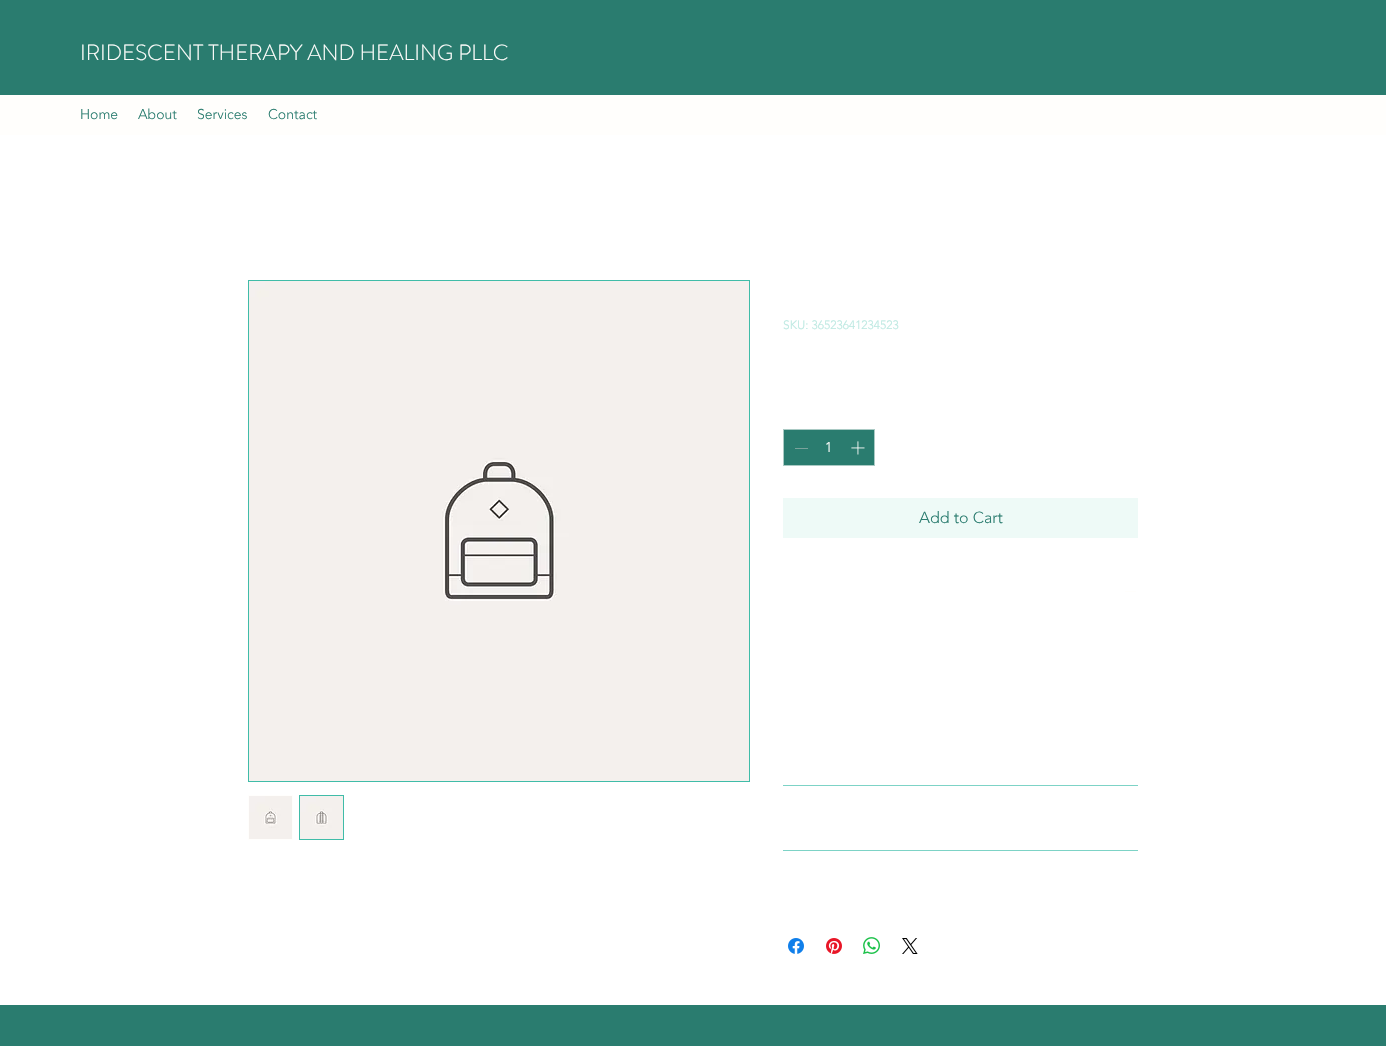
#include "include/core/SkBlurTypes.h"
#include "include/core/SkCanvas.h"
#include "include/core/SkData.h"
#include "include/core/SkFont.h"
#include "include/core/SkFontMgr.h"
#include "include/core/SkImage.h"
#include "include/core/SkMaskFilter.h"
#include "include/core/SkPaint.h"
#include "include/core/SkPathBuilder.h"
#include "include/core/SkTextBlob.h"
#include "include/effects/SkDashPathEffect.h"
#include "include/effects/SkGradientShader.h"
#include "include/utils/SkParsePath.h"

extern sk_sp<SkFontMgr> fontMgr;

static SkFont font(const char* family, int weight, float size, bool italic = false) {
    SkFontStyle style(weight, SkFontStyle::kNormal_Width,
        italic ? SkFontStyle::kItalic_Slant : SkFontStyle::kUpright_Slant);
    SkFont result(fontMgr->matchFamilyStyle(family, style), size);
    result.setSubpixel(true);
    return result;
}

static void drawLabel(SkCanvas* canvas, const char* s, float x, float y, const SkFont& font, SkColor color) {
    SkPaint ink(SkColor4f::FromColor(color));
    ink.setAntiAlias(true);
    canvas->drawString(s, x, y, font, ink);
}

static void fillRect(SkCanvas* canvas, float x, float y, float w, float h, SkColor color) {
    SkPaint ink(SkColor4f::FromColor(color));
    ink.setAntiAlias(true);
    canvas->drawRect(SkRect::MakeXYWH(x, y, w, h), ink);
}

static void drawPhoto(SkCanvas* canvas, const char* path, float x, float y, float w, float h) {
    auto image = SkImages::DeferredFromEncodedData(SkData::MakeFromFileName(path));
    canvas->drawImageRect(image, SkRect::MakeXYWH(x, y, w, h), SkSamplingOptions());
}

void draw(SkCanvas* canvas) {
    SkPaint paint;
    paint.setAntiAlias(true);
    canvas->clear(0xFFFFFFFF);
    fillRect(canvas, 0, 0, 1386, 95, 0xFF2A7C6F);
    SkFont font1 = font("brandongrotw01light", 300, 22);
    drawLabel(canvas, "IRIDESCENT THERAPY AND HEALING PLLC", 80, 60, font1, 0xFFFFFEFC);
    fillRect(canvas, 0, 95, 1386, 40, 0xFFFFFEFC);
    SkFont font2 = font("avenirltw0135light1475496", 300, 14);
    drawLabel(canvas, "Home", 80, 119, font2, 0xFF2A7C6F);
    drawLabel(canvas, "About", 138, 119, font2, 0xFF2A7C6F);
    drawLabel(canvas, "Services", 197, 119, font2, 0xFF2A7C6F);
    drawLabel(canvas, "Contact", 268, 119, font2, 0xFF2A7C6F);
    paint.setStroke(true);
    paint.setStrokeWidth(1);
    paint.setColor(0xFF40BCA8);
    canvas->drawRect(SkRect::MakeXYWH(248.5f, 280.5f, 501, 501), paint);
    drawPhoto(canvas, "assets/img1.png", 249, 281, 500, 500);
    paint.setColor(0xFFFFFEFC);
    canvas->drawRect(SkRect::MakeXYWH(248.5f, 795.5f, 44, 44), paint);
    drawPhoto(canvas, "assets/img2.png", 249, 796, 43, 43);
    fillRect(canvas, 299, 795, 45, 45, 0xFF40BCA8);
    drawPhoto(canvas, "assets/img3.png", 300, 796, 43, 43);
    SkFont font3 = font("avenirltw0135light1475496", 300, 12);
    drawLabel(canvas, "SKU: 36523641234523", 783, 329, font3, 0xFFBDE9E2);
    paint.setStroke(false);
    paint.setColor(0xFF2A7C6F);
    canvas->drawRect(SkRect::MakeXYWH(783.5f, 429.5f, 91, 36), paint);
    paint.setStroke(true);
    paint.setColor(0xFFAACAC4);
    canvas->drawRect(SkRect::MakeXYWH(783.5f, 429.5f, 91, 36), paint);
    fillRect(canvas, 795, 448, 13, 1, 0xFF79A29B);
    drawLabel(canvas, "1", 825, 452, font2, 0xFFFFFEFC);
    drawPhoto(canvas, "assets/img4.png", 851, 441, 14, 14);
    fillRect(canvas, 783, 498, 355, 40, 0xFFEEFAF7);
    SkFont font4 = font("avenirltw0135light1475496", 300, 16);
    drawLabel(canvas, "Add to Cart", 919, 523, font4, 0xFF2A7C6F);
    fillRect(canvas, 783, 785, 355, 1, 0xFF7DD3C6);
    fillRect(canvas, 1125, 591, 11, 1, 0xFFFFFEFC);
    fillRect(canvas, 783, 850, 355, 1, 0xFF7DD3C6);
    drawPhoto(canvas, "assets/img5.png", 788, 938, 16, 16);
    drawPhoto(canvas, "assets/img6.png", 826, 938, 16, 16);
    drawPhoto(canvas, "assets/img7.png", 863, 937, 17, 17);
    drawPhoto(canvas, "assets/img8.png", 902, 938, 16, 16);
    fillRect(canvas, 0, 1005, 1386, 41, 0xFF2A7C6F);
}
